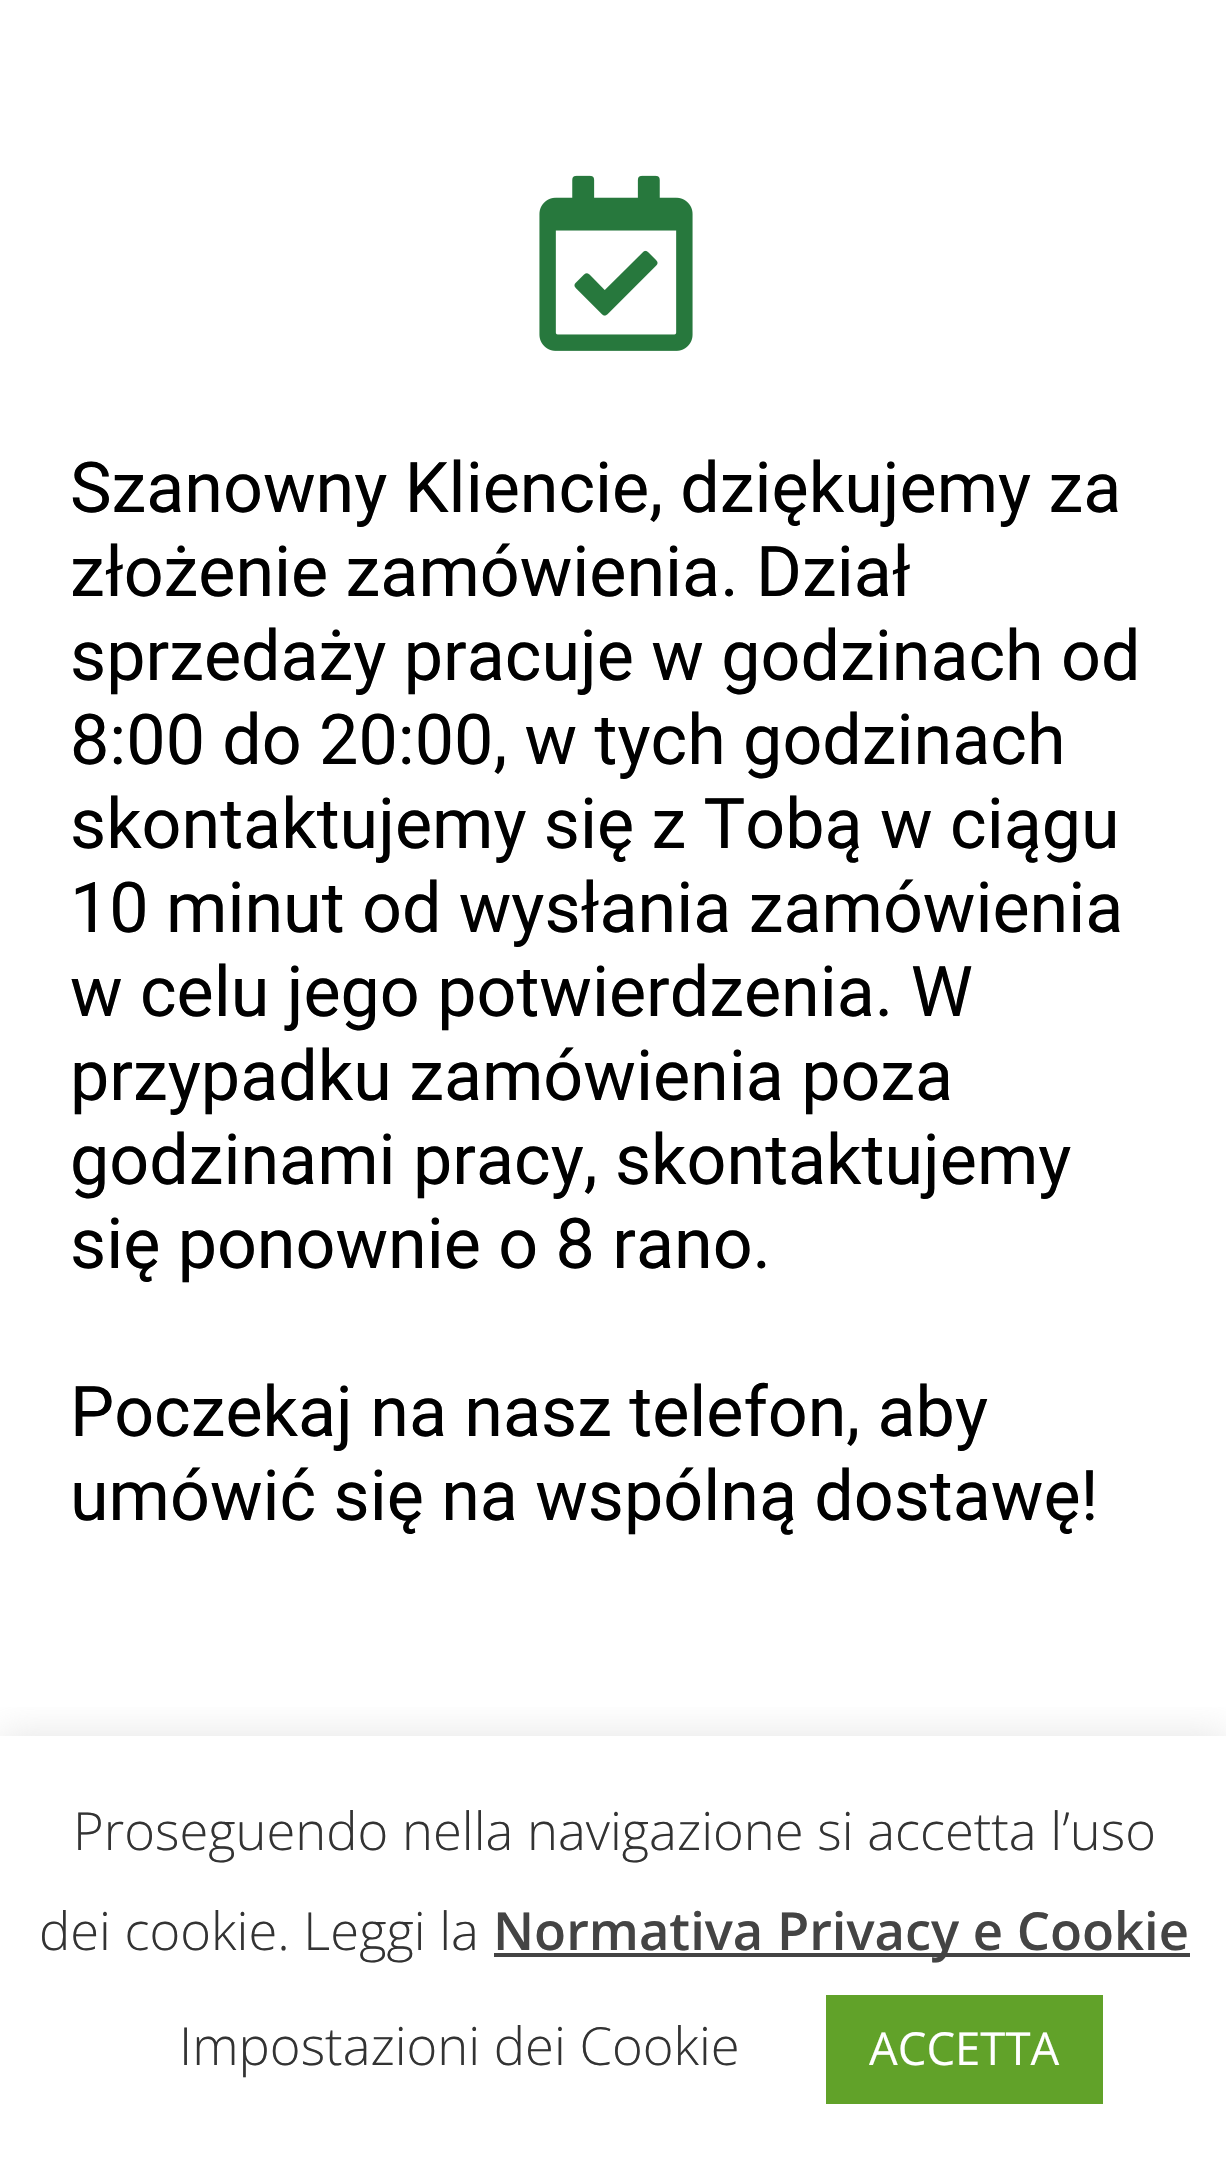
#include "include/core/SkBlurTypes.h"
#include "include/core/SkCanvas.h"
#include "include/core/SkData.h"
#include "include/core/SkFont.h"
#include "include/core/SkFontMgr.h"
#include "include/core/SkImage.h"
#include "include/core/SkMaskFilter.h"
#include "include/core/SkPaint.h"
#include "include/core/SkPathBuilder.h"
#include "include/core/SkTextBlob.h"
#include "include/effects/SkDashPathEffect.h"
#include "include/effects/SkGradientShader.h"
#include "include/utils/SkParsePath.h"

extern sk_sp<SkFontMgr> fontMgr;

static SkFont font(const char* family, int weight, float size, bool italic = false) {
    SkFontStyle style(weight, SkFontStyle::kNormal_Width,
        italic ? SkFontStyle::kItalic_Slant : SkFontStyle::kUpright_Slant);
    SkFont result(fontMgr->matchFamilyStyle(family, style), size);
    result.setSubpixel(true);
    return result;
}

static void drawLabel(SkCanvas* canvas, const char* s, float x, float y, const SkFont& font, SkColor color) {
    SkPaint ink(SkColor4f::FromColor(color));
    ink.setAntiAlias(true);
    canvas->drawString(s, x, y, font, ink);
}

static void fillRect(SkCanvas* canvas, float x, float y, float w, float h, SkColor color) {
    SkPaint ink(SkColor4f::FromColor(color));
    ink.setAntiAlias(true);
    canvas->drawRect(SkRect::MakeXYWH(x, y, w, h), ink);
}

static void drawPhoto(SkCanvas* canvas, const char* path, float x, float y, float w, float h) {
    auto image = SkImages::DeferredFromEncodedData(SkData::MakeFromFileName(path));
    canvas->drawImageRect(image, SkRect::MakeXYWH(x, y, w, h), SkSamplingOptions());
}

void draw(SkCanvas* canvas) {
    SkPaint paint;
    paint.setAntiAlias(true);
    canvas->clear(0xFFFFFFFF);
    drawPhoto(canvas, "assets/img1.png", 539, 175, 154, 176);
    SkFont font1 = font("Roboto", 400, 70);
    drawLabel(canvas, "Szanowny Kliencie, dziękujemy za", 70, 512, font1, 0xFF000000);
    drawLabel(canvas, "złożenie zamówienia. Dział", 70, 596, font1, 0xFF000000);
    drawLabel(canvas, "sprzedaży pracuje w godzinach od", 70, 680, font1, 0xFF000000);
    drawLabel(canvas, "8:00 do 20:00, w tych godzinach", 70, 764, font1, 0xFF000000);
    drawLabel(canvas, "skontaktujemy się z Tobą w ciągu", 70, 848, font1, 0xFF000000);
    drawLabel(canvas, "10 minut od wysłania zamówienia", 70, 932, font1, 0xFF000000);
    drawLabel(canvas, "w celu jego potwierdzenia. W", 70, 1016, font1, 0xFF000000);
    drawLabel(canvas, "przypadku zamówienia poza", 70, 1100, font1, 0xFF000000);
    drawLabel(canvas, "godzinami pracy, skontaktujemy", 70, 1184, font1, 0xFF000000);
    drawLabel(canvas, "się ponownie o 8 rano.", 70, 1268, font1, 0xFF000000);
    drawLabel(canvas, "Poczekaj na nasz telefon, aby", 70, 1436, font1, 0xFF000000);
    drawLabel(canvas, "umówić się na wspólną dostawę!", 70, 1520, font1, 0xFF000000);
    canvas->save();
    canvas->clipRect(SkRect::MakeXYWH(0, 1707, 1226, 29));
    paint.setColor(0x4DACABAB);
    paint.setMaskFilter(SkMaskFilter::MakeBlur(kNormal_SkBlurStyle, 17.5f));
    canvas->drawRect(SkRect::MakeXYWH(0, 1733, 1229, 427), paint);
    paint.setMaskFilter(nullptr);
    canvas->restore();
    SkFont font2 = font("Open Sans", 300, 52.5f);
    drawLabel(canvas, "Proseguendo nella navigazione si accetta l’uso", 73, 1850, font2, 0xFF333333);
    drawLabel(canvas, "dei cookie. Leggi la", 39, 1950, font2, 0xFF333333);
    fillRect(canvas, 494, 1953, 696, 4, 0xFF444444);
    SkFont font3 = font("Open Sans", 600, 52.5f);
    drawLabel(canvas, "Normativa Privacy e Cookie", 493, 1950, font3, 0xFF444444);
    drawLabel(canvas, "Impostazioni dei Cookie", 179, 2065, font2, 0xFF333333);
    fillRect(canvas, 826, 1995, 277, 109, 0xFF61A229);
    SkFont font4 = font("Open Sans", 400, 45.5f);
    drawLabel(canvas, "ACCETTA", 869, 2065, font4, 0xFFFFFFFF);
}
